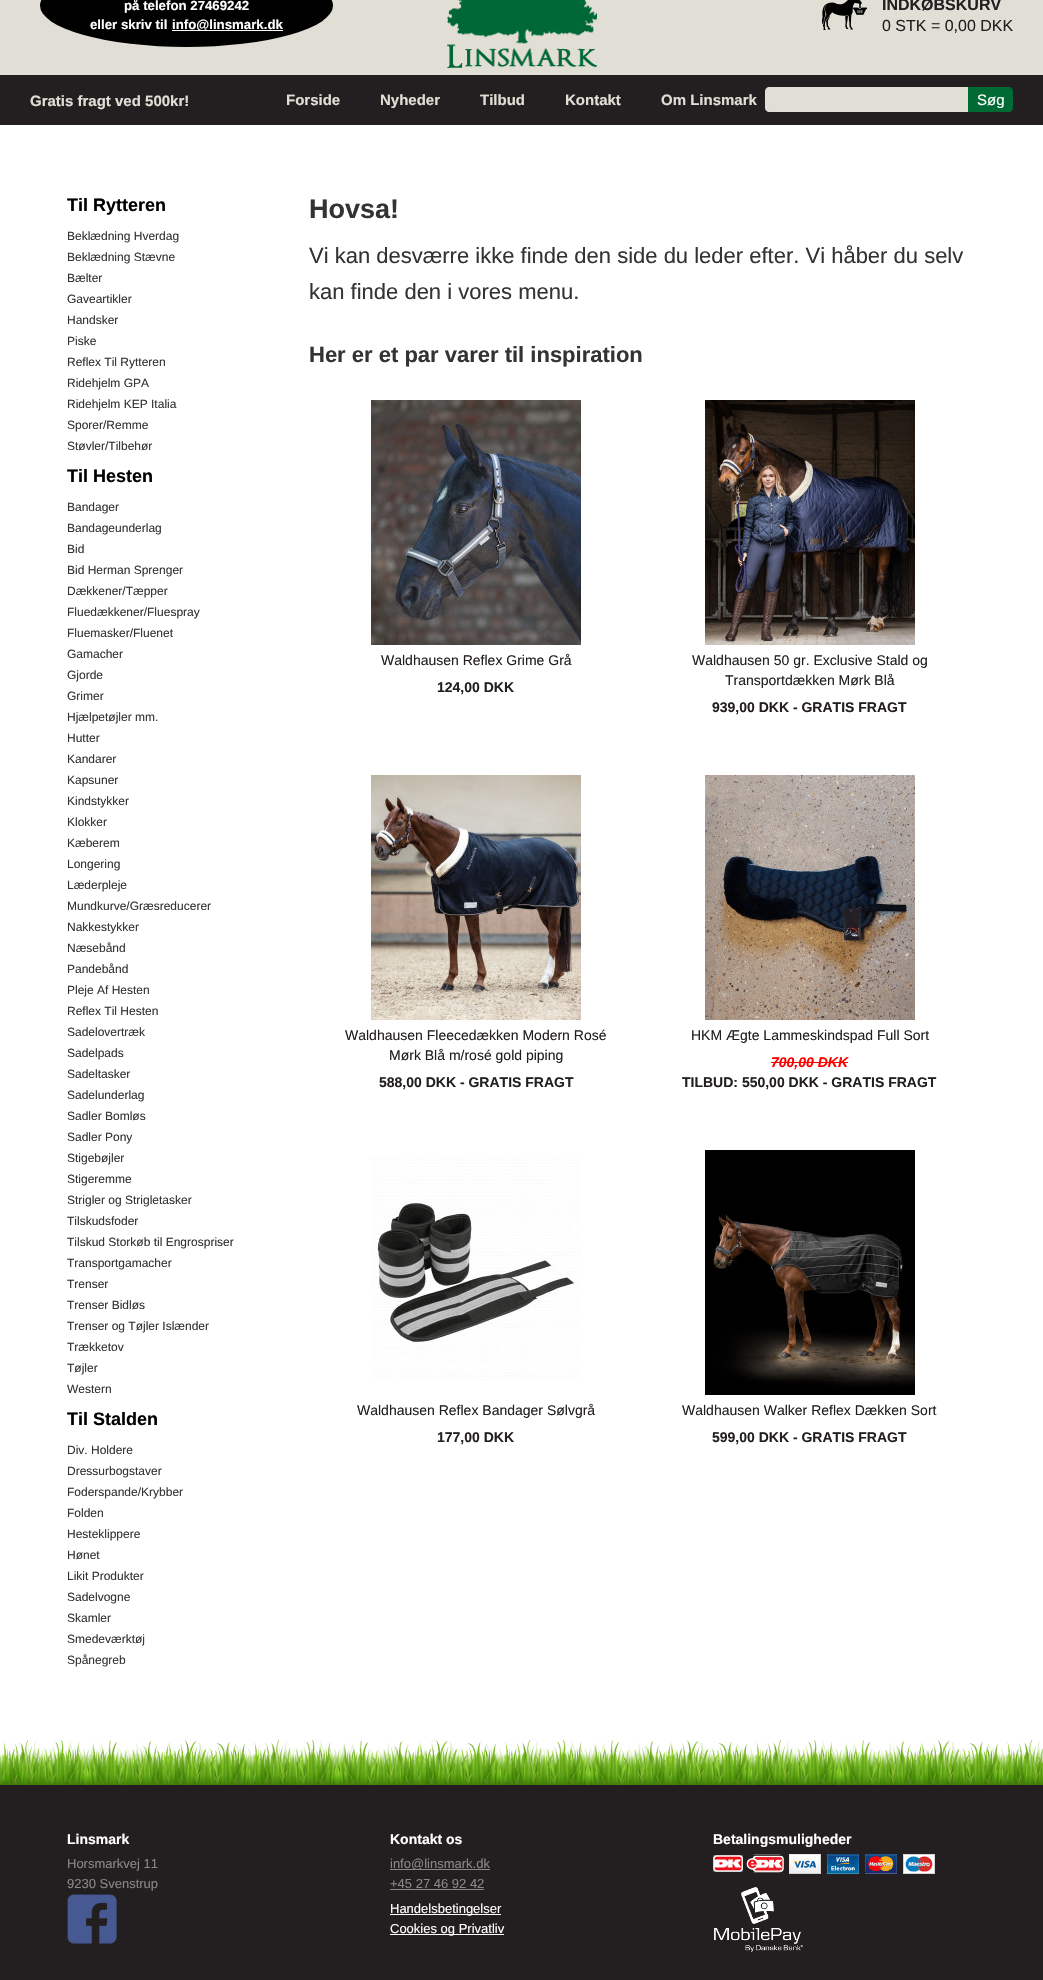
#include "include/core/SkBlurTypes.h"
#include "include/core/SkCanvas.h"
#include "include/core/SkData.h"
#include "include/core/SkFont.h"
#include "include/core/SkFontMgr.h"
#include "include/core/SkImage.h"
#include "include/core/SkMaskFilter.h"
#include "include/core/SkPaint.h"
#include "include/core/SkPathBuilder.h"
#include "include/core/SkTextBlob.h"
#include "include/effects/SkDashPathEffect.h"
#include "include/effects/SkGradientShader.h"
#include "include/utils/SkParsePath.h"

extern sk_sp<SkFontMgr> fontMgr;

static SkFont font(const char* family, int weight, float size, bool italic = false) {
    SkFontStyle style(weight, SkFontStyle::kNormal_Width,
        italic ? SkFontStyle::kItalic_Slant : SkFontStyle::kUpright_Slant);
    SkFont result(fontMgr->matchFamilyStyle(family, style), size);
    result.setSubpixel(true);
    return result;
}

static void drawLabel(SkCanvas* canvas, const char* s, float x, float y, const SkFont& font, SkColor color) {
    SkPaint ink(SkColor4f::FromColor(color));
    ink.setAntiAlias(true);
    canvas->drawString(s, x, y, font, ink);
}

static void fillRect(SkCanvas* canvas, float x, float y, float w, float h, SkColor color) {
    SkPaint ink(SkColor4f::FromColor(color));
    ink.setAntiAlias(true);
    canvas->drawRect(SkRect::MakeXYWH(x, y, w, h), ink);
}

static void drawPhoto(SkCanvas* canvas, const char* path, float x, float y, float w, float h) {
    auto image = SkImages::DeferredFromEncodedData(SkData::MakeFromFileName(path));
    canvas->drawImageRect(image, SkRect::MakeXYWH(x, y, w, h), SkSamplingOptions());
}

static SkPath parsePath(const char* data, bool evenOdd = false) {
    SkPath result = *SkParsePath::FromSVGString(data);
    if (evenOdd) result.setFillType(SkPathFillType::kEvenOdd);
    return result;
}

void draw(SkCanvas* canvas) {
    SkPaint paint;
    paint.setAntiAlias(true);
    canvas->clear(0xFFFFFFFF);
    fillRect(canvas, 0, 0, 1043, 75, 0xFFE1DED5);
    paint.setColor(0xFF000000);
    canvas->drawOval(SkRect::MakeXYWH(40, -36, 293, 83), paint);
    SkFont font1 = font("Liberation Sans", 700, 13.25f);
    drawLabel(canvas, "på telefon 27469242", 124, 10, font1, 0xFFFFFFFF);
    drawLabel(canvas, "eller skriv til", 90, 29, font1, 0xFFFFFFFF);
    fillRect(canvas, 172, 30, 111, 1, 0xFFFFFFFF);
    drawLabel(canvas, "info@linsmark.dk", 172, 29, font1, 0xFFFFFFFF);
    drawPhoto(canvas, "assets/img1.png", 447, 0, 150, 68);
    drawPhoto(canvas, "assets/img2.png", 822, 0, 45, 30);
    SkFont font2 = font("Liberation Sans", 700, 16);
    drawLabel(canvas, "INDKØBSKURV", 882, 10, font2, 0xFF231F20);
    SkFont font3 = font("Liberation Sans", 400, 16);
    drawLabel(canvas, "0 STK = 0,00 DKK", 882, 31, font3, 0xFF231F20);
    fillRect(canvas, 0, 75, 1043, 50, 0xFF231F20);
    SkFont font4 = font("Liberation Sans", 700, 15);
    drawLabel(canvas, "Gratis fragt ved 500kr!", 30, 106, font4, 0xFFE1DED5);
    drawLabel(canvas, "Forside", 286, 105, font4, 0xFFE1DED5);
    drawLabel(canvas, "Nyheder", 380, 105, font4, 0xFFE1DED5);
    drawLabel(canvas, "Tilbud", 480, 105, font4, 0xFFE1DED5);
    drawLabel(canvas, "Kontakt", 565, 105, font4, 0xFFE1DED5);
    drawLabel(canvas, "Om Linsmark", 661, 105, font4, 0xFFE1DED5);
    paint.setColor(0xFFE1DED5);
    canvas->drawPath(parsePath("M769 87H968V112H769C767 112 765 110 765 108V91C765 89 767 87 769 87Z"), paint);
    paint.setColor(0xFF006A35);
    canvas->drawPath(parsePath("M968 87H1009C1011 87 1013 89 1013 91V108C1013 110 1011 112 1009 112H968Z"), paint);
    SkFont font5 = font("Liberation Sans", 400, 15);
    drawLabel(canvas, "Søg", 977, 105, font5, 0xFFFFFFFF);
    SkFont font6 = font("Liberation Sans", 700, 18);
    drawLabel(canvas, "Til Rytteren", 67, 211, font6, 0xFF000000);
    SkFont font7 = font("Liberation Sans", 400, 12);
    drawLabel(canvas, "Beklædning Hverdag", 67, 240, font7, 0xFF333333);
    drawLabel(canvas, "Beklædning Stævne", 67, 261, font7, 0xFF333333);
    drawLabel(canvas, "Bælter", 67, 282, font7, 0xFF333333);
    drawLabel(canvas, "Gaveartikler", 67, 303, font7, 0xFF333333);
    drawLabel(canvas, "Handsker", 67, 324, font7, 0xFF333333);
    drawLabel(canvas, "Piske", 67, 345, font7, 0xFF333333);
    drawLabel(canvas, "Reflex Til Rytteren", 67, 366, font7, 0xFF333333);
    drawLabel(canvas, "Ridehjelm GPA", 67, 387, font7, 0xFF333333);
    drawLabel(canvas, "Ridehjelm KEP Italia", 67, 408, font7, 0xFF333333);
    drawLabel(canvas, "Sporer/Remme", 67, 429, font7, 0xFF333333);
    drawLabel(canvas, "Støvler/Tilbehør", 67, 450, font7, 0xFF333333);
    drawLabel(canvas, "Til Hesten", 67, 482, font6, 0xFF000000);
    drawLabel(canvas, "Bandager", 67, 511, font7, 0xFF333333);
    drawLabel(canvas, "Bandageunderlag", 67, 532, font7, 0xFF333333);
    drawLabel(canvas, "Bid", 67, 553, font7, 0xFF333333);
    drawLabel(canvas, "Bid Herman Sprenger", 67, 574, font7, 0xFF333333);
    drawLabel(canvas, "Dækkener/Tæpper", 67, 595, font7, 0xFF333333);
    drawLabel(canvas, "Fluedækkener/Fluespray", 67, 616, font7, 0xFF333333);
    drawLabel(canvas, "Fluemasker/Fluenet", 67, 637, font7, 0xFF333333);
    drawLabel(canvas, "Gamacher", 67, 658, font7, 0xFF333333);
    drawLabel(canvas, "Gjorde", 67, 679, font7, 0xFF333333);
    drawLabel(canvas, "Grimer", 67, 700, font7, 0xFF333333);
    drawLabel(canvas, "Hjælpetøjler mm.", 67, 721, font7, 0xFF333333);
    drawLabel(canvas, "Hutter", 67, 742, font7, 0xFF333333);
    drawLabel(canvas, "Kandarer", 67, 763, font7, 0xFF333333);
    drawLabel(canvas, "Kapsuner", 67, 784, font7, 0xFF333333);
    drawLabel(canvas, "Kindstykker", 67, 805, font7, 0xFF333333);
    drawLabel(canvas, "Klokker", 67, 826, font7, 0xFF333333);
    drawLabel(canvas, "Kæberem", 67, 847, font7, 0xFF333333);
    drawLabel(canvas, "Longering", 67, 868, font7, 0xFF333333);
    drawLabel(canvas, "Læderpleje", 67, 889, font7, 0xFF333333);
    drawLabel(canvas, "Mundkurve/Græsreducerer", 67, 910, font7, 0xFF333333);
    drawLabel(canvas, "Nakkestykker", 67, 931, font7, 0xFF333333);
    drawLabel(canvas, "Næsebånd", 67, 952, font7, 0xFF333333);
    drawLabel(canvas, "Pandebånd", 67, 973, font7, 0xFF333333);
    drawLabel(canvas, "Pleje Af Hesten", 67, 994, font7, 0xFF333333);
    drawLabel(canvas, "Reflex Til Hesten", 67, 1015, font7, 0xFF333333);
    drawLabel(canvas, "Sadelovertræk", 67, 1036, font7, 0xFF333333);
    drawLabel(canvas, "Sadelpads", 67, 1057, font7, 0xFF333333);
    drawLabel(canvas, "Sadeltasker", 67, 1078, font7, 0xFF333333);
    drawLabel(canvas, "Sadelunderlag", 67, 1099, font7, 0xFF333333);
    drawLabel(canvas, "Sadler Bomløs", 67, 1120, font7, 0xFF333333);
    drawLabel(canvas, "Sadler Pony", 67, 1141, font7, 0xFF333333);
    drawLabel(canvas, "Stigebøjler", 67, 1162, font7, 0xFF333333);
    drawLabel(canvas, "Stigeremme", 67, 1183, font7, 0xFF333333);
    drawLabel(canvas, "Strigler og Strigletasker", 67, 1204, font7, 0xFF333333);
    drawLabel(canvas, "Tilskudsfoder", 67, 1225, font7, 0xFF333333);
    drawLabel(canvas, "Tilskud Storkøb til Engrospriser", 67, 1246, font7, 0xFF333333);
    drawLabel(canvas, "Transportgamacher", 67, 1267, font7, 0xFF333333);
    drawLabel(canvas, "Trenser", 67, 1288, font7, 0xFF333333);
    drawLabel(canvas, "Trenser Bidløs", 67, 1309, font7, 0xFF333333);
    drawLabel(canvas, "Trenser og Tøjler Islænder", 67, 1330, font7, 0xFF333333);
    drawLabel(canvas, "Trækketov", 67, 1351, font7, 0xFF333333);
    drawLabel(canvas, "Tøjler", 67, 1372, font7, 0xFF333333);
    drawLabel(canvas, "Western", 67, 1393, font7, 0xFF333333);
    drawLabel(canvas, "Til Stalden", 67, 1425, font6, 0xFF000000);
    drawLabel(canvas, "Div. Holdere", 67, 1454, font7, 0xFF333333);
    drawLabel(canvas, "Dressurbogstaver", 67, 1475, font7, 0xFF333333);
    drawLabel(canvas, "Foderspande/Krybber", 67, 1496, font7, 0xFF333333);
    drawLabel(canvas, "Folden", 67, 1517, font7, 0xFF333333);
    drawLabel(canvas, "Hesteklippere", 67, 1538, font7, 0xFF333333);
    drawLabel(canvas, "Hønet", 67, 1559, font7, 0xFF333333);
    drawLabel(canvas, "Likit Produkter", 67, 1580, font7, 0xFF333333);
    drawLabel(canvas, "Sadelvogne", 67, 1601, font7, 0xFF333333);
    drawLabel(canvas, "Skamler", 67, 1622, font7, 0xFF333333);
    drawLabel(canvas, "Smedeværktøj", 67, 1643, font7, 0xFF333333);
    drawLabel(canvas, "Spånegreb", 67, 1664, font7, 0xFF333333);
    SkFont font8 = font("Liberation Sans", 700, 27);
    drawLabel(canvas, "Hovsa!", 309, 218, font8, 0xFF333333);
    SkFont font9 = font("Liberation Sans", 400, 22);
    drawLabel(canvas, "Vi kan desværre ikke finde den side du leder efter. Vi håber du selv", 309, 263, font9, 0xFF333333);
    drawLabel(canvas, "kan finde den i vores menu.", 309, 299, font9, 0xFF333333);
    SkFont font10 = font("Liberation Sans", 700, 22);
    drawLabel(canvas, "Her er et par varer til inspiration", 309, 362, font10, 0xFF333333);
    drawPhoto(canvas, "assets/img3.png", 371, 400, 210, 245);
    SkFont font11 = font("Liberation Sans", 400, 14);
    drawLabel(canvas, "Waldhausen Reflex Grime Grå", 381, 665, font11, 0xFF231F20);
    SkFont font12 = font("Liberation Sans", 700, 14);
    drawLabel(canvas, "124,00 DKK", 437, 692, font12, 0xFF231F20);
    drawPhoto(canvas, "assets/img4.png", 705, 400, 210, 245);
    drawLabel(canvas, "Waldhausen 50 gr. Exclusive Stald og", 692, 665, font11, 0xFF231F20);
    drawLabel(canvas, "Transportdækken Mørk Blå", 725, 685, font11, 0xFF231F20);
    drawLabel(canvas, "939,00 DKK - GRATIS FRAGT", 712, 712, font12, 0xFF231F20);
    drawPhoto(canvas, "assets/img5.png", 371, 775, 210, 245);
    drawLabel(canvas, "Waldhausen Fleecedækken Modern Rosé", 345, 1040, font11, 0xFF231F20);
    drawLabel(canvas, "Mørk Blå m/rosé gold piping", 389, 1060, font11, 0xFF231F20);
    drawLabel(canvas, "588,00 DKK - GRATIS FRAGT", 379, 1087, font12, 0xFF231F20);
    drawPhoto(canvas, "assets/img6.png", 705, 775, 210, 245);
    drawLabel(canvas, "HKM Ægte Lammeskindspad Full Sort", 691, 1040, font11, 0xFF231F20);
    SkFont font13 = font("Liberation Sans", 700, 14, true);
    drawLabel(canvas, "700,00 DKK", 771, 1067, font13, 0xFFFF0000);
    fillRect(canvas, 771, 1062, 77, 1, 0xFFFF0000);
    drawLabel(canvas, "TILBUD: 550,00 DKK - GRATIS FRAGT", 682, 1087, font12, 0xFF231F20);
    drawPhoto(canvas, "assets/img7.png", 371, 1157, 210, 223);
    drawLabel(canvas, "Waldhausen Reflex Bandager Sølvgrå", 357, 1415, font11, 0xFF231F20);
    drawLabel(canvas, "177,00 DKK", 437, 1442, font12, 0xFF231F20);
    drawPhoto(canvas, "assets/img8.png", 705, 1150, 210, 245);
    drawLabel(canvas, "Waldhausen Walker Reflex Dækken Sort", 682, 1415, font11, 0xFF231F20);
    drawLabel(canvas, "599,00 DKK - GRATIS FRAGT", 712, 1442, font12, 0xFF231F20);
    drawPhoto(canvas, "assets/img9.png", 0, 1740, 1043, 45);
    fillRect(canvas, 0, 1785, 1043, 195, 0xFF231F20);
    drawLabel(canvas, "Linsmark", 67, 1844, font12, 0xFFFFFFFF);
    SkFont font14 = font("Liberation Sans", 400, 13);
    drawLabel(canvas, "Horsmarkvej 11", 67, 1868, font14, 0xFF888888);
    drawLabel(canvas, "9230 Svenstrup", 67, 1888, font14, 0xFF888888);
    drawPhoto(canvas, "assets/img10.png", 67, 1894, 50, 50);
    drawLabel(canvas, "Kontakt os", 390, 1844, font12, 0xFFFFFFFF);
    fillRect(canvas, 390, 1869, 100, 1, 0xFF888888);
    drawLabel(canvas, "info@linsmark.dk", 390, 1868, font14, 0xFF888888);
    drawLabel(canvas, "+45 27 46 92 42", 390, 1888, font14, 0xFF888888);
    fillRect(canvas, 390, 1889, 94, 1, 0xFF888888);
    fillRect(canvas, 390, 1914, 111, 1, 0xFFFFFFFF);
    drawLabel(canvas, "Handelsbetingelser", 390, 1913, font14, 0xFFFFFFFF);
    fillRect(canvas, 390, 1934, 114, 1, 0xFFFFFFFF);
    drawLabel(canvas, "Cookies og Privatliv", 390, 1933, font14, 0xFFFFFFFF);
    drawLabel(canvas, "Betalingsmuligheder", 713, 1844, font12, 0xFFFFFFFF);
    drawPhoto(canvas, "assets/img11.png", 713, 1854, 222, 98);
}
